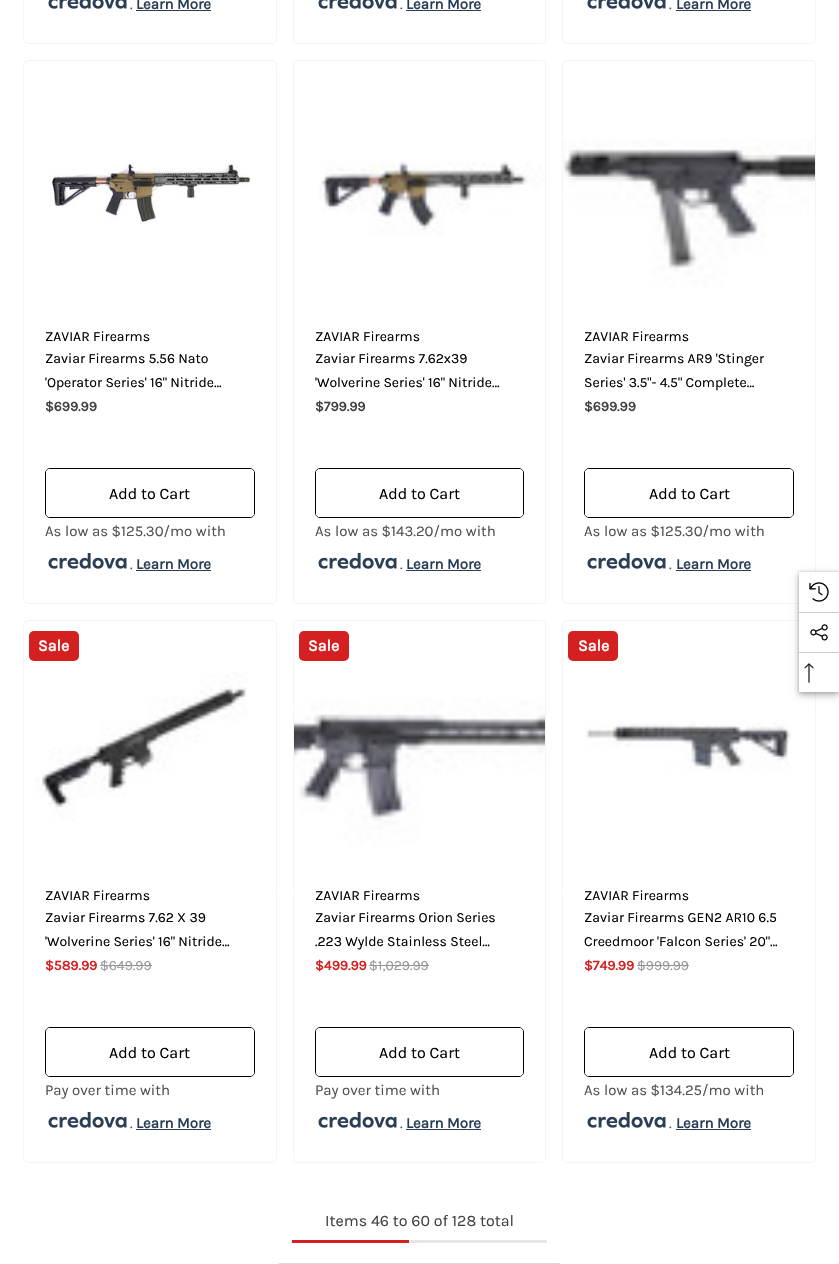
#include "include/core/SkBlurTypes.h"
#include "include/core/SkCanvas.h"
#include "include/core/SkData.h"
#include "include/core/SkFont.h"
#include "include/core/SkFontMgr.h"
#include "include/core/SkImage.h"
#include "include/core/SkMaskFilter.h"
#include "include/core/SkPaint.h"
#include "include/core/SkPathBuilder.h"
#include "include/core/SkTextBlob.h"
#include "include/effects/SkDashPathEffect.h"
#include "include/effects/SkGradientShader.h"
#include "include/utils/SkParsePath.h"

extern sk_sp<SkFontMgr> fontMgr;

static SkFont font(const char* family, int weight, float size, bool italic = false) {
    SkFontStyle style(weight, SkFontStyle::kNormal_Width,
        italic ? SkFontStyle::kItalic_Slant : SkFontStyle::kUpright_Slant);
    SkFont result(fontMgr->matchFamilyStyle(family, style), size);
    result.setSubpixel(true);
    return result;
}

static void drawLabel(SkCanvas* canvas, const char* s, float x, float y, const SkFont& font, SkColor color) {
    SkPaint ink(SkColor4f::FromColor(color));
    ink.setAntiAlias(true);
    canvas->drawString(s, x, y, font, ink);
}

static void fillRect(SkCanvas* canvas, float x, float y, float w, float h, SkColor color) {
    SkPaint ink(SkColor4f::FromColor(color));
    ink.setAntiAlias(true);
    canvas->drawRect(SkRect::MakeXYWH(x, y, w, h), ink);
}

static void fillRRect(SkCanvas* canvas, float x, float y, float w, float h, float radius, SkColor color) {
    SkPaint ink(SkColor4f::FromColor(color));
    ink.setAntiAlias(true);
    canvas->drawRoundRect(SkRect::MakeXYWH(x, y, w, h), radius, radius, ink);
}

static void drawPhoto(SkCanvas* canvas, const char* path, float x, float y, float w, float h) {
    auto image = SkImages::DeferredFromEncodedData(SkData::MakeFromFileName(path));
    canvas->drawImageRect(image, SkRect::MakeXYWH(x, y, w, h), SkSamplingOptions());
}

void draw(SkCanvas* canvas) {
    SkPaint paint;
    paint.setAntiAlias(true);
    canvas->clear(0xFFFFFFFF);
    paint.setStroke(true);
    paint.setStrokeWidth(1);
    paint.setColor(0xFFF4F4F4);
    canvas->drawRoundRect(SkRect::MakeXYWH(23.5f, -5.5f, 253, 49), 4.5f, 4.5f, paint);
    drawPhoto(canvas, "assets/img1.png", 48, 0, 79, 9);
    SkFont font1 = font("Karla", 400, 15);
    drawLabel(canvas, ".", 130, 9, font1, 0xFF555150);
    SkFont font2 = font("Karla", 700, 15);
    drawLabel(canvas, "Learn More", 136, 9, font2, 0xFF293E56);
    fillRect(canvas, 136, 10, 75, 1, 0xFF293E56);
    canvas->drawRoundRect(SkRect::MakeXYWH(293.5f, -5.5f, 252, 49), 4.5f, 4.5f, paint);
    drawPhoto(canvas, "assets/img1.png", 318, 0, 79, 9);
    drawLabel(canvas, ".", 400, 9, font1, 0xFF555150);
    drawLabel(canvas, "Learn More", 406, 9, font2, 0xFF293E56);
    fillRect(canvas, 406, 10, 75, 1, 0xFF293E56);
    canvas->drawRoundRect(SkRect::MakeXYWH(562.5f, -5.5f, 253, 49), 4.5f, 4.5f, paint);
    drawPhoto(canvas, "assets/img1.png", 587, 0, 79, 9);
    drawLabel(canvas, ".", 669, 9, font1, 0xFF555150);
    drawLabel(canvas, "Learn More", 676, 9, font2, 0xFF293E56);
    fillRect(canvas, 676, 10, 75, 1, 0xFF293E56);
    canvas->drawRoundRect(SkRect::MakeXYWH(23.5f, 60.5f, 253, 543), 4.5f, 4.5f, paint);
    drawPhoto(canvas, "assets/img2.png", 50, 162, 201, 63);
    SkFont font3 = font("Karla", 400, 14);
    drawLabel(canvas, "ZAVIAR Firearms", 45, 341, font3, 0xFF000000);
    drawLabel(canvas, "Zaviar Firearms 5.56 Nato", 45, 363, font3, 0xFF000000);
    drawLabel(canvas, "'Operator Series' 16\" Nitride…", 45, 387, font3, 0xFF000000);
    SkFont font4 = font("Karla", 700, 14);
    drawLabel(canvas, "$699.99", 45, 411, font4, 0xFF424242);
    paint.setColor(0xFF000000);
    canvas->drawRoundRect(SkRect::MakeXYWH(45.5f, 468.5f, 209, 49), 4.5f, 4.5f, paint);
    fillRRect(canvas, 46, 469, 208, 48, 4, 0xFFFFFFFF);
    SkFont font5 = font("Karla", 400, 16);
    drawLabel(canvas, "Add to Cart", 109, 499, font5, 0xFF000000);
    drawLabel(canvas, "As low as $125.30/mo with", 45, 536, font1, 0xFF555150);
    drawPhoto(canvas, "assets/img3.png", 48, 553, 79, 16);
    drawLabel(canvas, ".", 130, 569, font1, 0xFF555150);
    drawLabel(canvas, "Learn More", 136, 569, font2, 0xFF293E56);
    fillRect(canvas, 136, 570, 75, 1, 0xFF293E56);
    paint.setColor(0xFFF4F4F4);
    canvas->drawRoundRect(SkRect::MakeXYWH(293.5f, 60.5f, 252, 543), 4.5f, 4.5f, paint);
    drawPhoto(canvas, "assets/img4.png", 319, 161, 226, 76);
    drawLabel(canvas, "ZAVIAR Firearms", 315, 341, font3, 0xFF000000);
    drawLabel(canvas, "Zaviar Firearms 7.62x39", 315, 363, font3, 0xFF000000);
    drawLabel(canvas, "'Wolverine Series' 16\" Nitride…", 315, 387, font3, 0xFF000000);
    drawLabel(canvas, "$799.99", 315, 411, font4, 0xFF424242);
    paint.setColor(0xFF000000);
    canvas->drawRoundRect(SkRect::MakeXYWH(315.5f, 468.5f, 208, 49), 4.5f, 4.5f, paint);
    fillRRect(canvas, 316, 469, 207, 48, 4, 0xFFFFFFFF);
    drawLabel(canvas, "Add to Cart", 379, 499, font5, 0xFF000000);
    drawLabel(canvas, "As low as $143.20/mo with", 315, 536, font1, 0xFF555150);
    drawPhoto(canvas, "assets/img3.png", 318, 553, 79, 16);
    drawLabel(canvas, ".", 400, 569, font1, 0xFF555150);
    drawLabel(canvas, "Learn More", 406, 569, font2, 0xFF293E56);
    fillRect(canvas, 406, 570, 75, 1, 0xFF293E56);
    paint.setColor(0xFFF4F4F4);
    canvas->drawRoundRect(SkRect::MakeXYWH(562.5f, 60.5f, 253, 543), 4.5f, 4.5f, paint);
    drawPhoto(canvas, "assets/img5.png", 563, 139, 252, 149);
    drawLabel(canvas, "ZAVIAR Firearms", 584, 341, font3, 0xFF000000);
    drawLabel(canvas, "Zaviar Firearms AR9 'Stinger", 584, 363, font3, 0xFF000000);
    drawLabel(canvas, "Series' 3.5\"- 4.5\" Complete…", 584, 387, font3, 0xFF000000);
    drawLabel(canvas, "$699.99", 584, 411, font4, 0xFF424242);
    paint.setColor(0xFF000000);
    canvas->drawRoundRect(SkRect::MakeXYWH(584.5f, 468.5f, 209, 49), 4.5f, 4.5f, paint);
    fillRRect(canvas, 585, 469, 208, 48, 4, 0xFFFFFFFF);
    drawLabel(canvas, "Add to Cart", 649, 499, font5, 0xFF000000);
    drawLabel(canvas, "As low as $125.30/mo with", 584, 536, font1, 0xFF555150);
    drawPhoto(canvas, "assets/img3.png", 587, 553, 79, 16);
    drawLabel(canvas, ".", 669, 569, font1, 0xFF555150);
    drawLabel(canvas, "Learn More", 676, 569, font2, 0xFF293E56);
    fillRect(canvas, 676, 570, 75, 1, 0xFF293E56);
    paint.setColor(0xFFF4F4F4);
    canvas->drawRoundRect(SkRect::MakeXYWH(23.5f, 620.5f, 253, 542), 4.5f, 4.5f, paint);
    fillRRect(canvas, 29, 631, 50, 30, 5, 0xFFD42020);
    SkFont font6 = font("Karla", 700, 16);
    drawLabel(canvas, "Sale", 38, 651, font6, 0xFFFFFFFF);
    drawPhoto(canvas, "assets/img6.png", 34, 672, 213, 149);
    drawLabel(canvas, "ZAVIAR Firearms", 45, 900, font3, 0xFF000000);
    drawLabel(canvas, "Zaviar Firearms 7.62 X 39", 45, 922, font3, 0xFF000000);
    drawLabel(canvas, "'Wolverine Series' 16\" Nitride…", 45, 946, font3, 0xFF000000);
    drawLabel(canvas, "$589.99", 45, 970, font4, 0xFFD42020);
    drawLabel(canvas, "$649.99", 100, 970, font3, 0xFF969696);
    fillRect(canvas, 100, 965, 52, 1, 0xFF969696);
    paint.setColor(0xFF000000);
    canvas->drawRoundRect(SkRect::MakeXYWH(45.5f, 1027.5f, 209, 49), 4.5f, 4.5f, paint);
    fillRRect(canvas, 46, 1028, 208, 48, 4, 0xFFFFFFFF);
    drawLabel(canvas, "Add to Cart", 109, 1058, font5, 0xFF000000);
    drawLabel(canvas, "Pay over time with", 45, 1095, font1, 0xFF555150);
    drawPhoto(canvas, "assets/img3.png", 48, 1112, 79, 16);
    drawLabel(canvas, ".", 130, 1128, font1, 0xFF555150);
    drawLabel(canvas, "Learn More", 136, 1128, font2, 0xFF293E56);
    fillRect(canvas, 136, 1129, 75, 1, 0xFF293E56);
    paint.setColor(0xFFF4F4F4);
    canvas->drawRoundRect(SkRect::MakeXYWH(293.5f, 620.5f, 252, 542), 4.5f, 4.5f, paint);
    fillRRect(canvas, 299, 631, 50, 30, 5, 0xFFD42020);
    drawLabel(canvas, "Sale", 308, 651, font6, 0xFFFFFFFF);
    drawPhoto(canvas, "assets/img7.png", 294, 698, 251, 149);
    drawLabel(canvas, "ZAVIAR Firearms", 315, 900, font3, 0xFF000000);
    drawLabel(canvas, "Zaviar Firearms Orion Series", 315, 922, font3, 0xFF000000);
    drawLabel(canvas, ".223 Wylde Stainless Steel…", 315, 946, font3, 0xFF000000);
    drawLabel(canvas, "$499.99", 315, 970, font4, 0xFFD42020);
    drawLabel(canvas, "$1,029.99", 369, 970, font3, 0xFF969696);
    fillRect(canvas, 369, 965, 60, 1, 0xFF969696);
    paint.setColor(0xFF000000);
    canvas->drawRoundRect(SkRect::MakeXYWH(315.5f, 1027.5f, 208, 49), 4.5f, 4.5f, paint);
    fillRRect(canvas, 316, 1028, 207, 48, 4, 0xFFFFFFFF);
    drawLabel(canvas, "Add to Cart", 379, 1058, font5, 0xFF000000);
    drawLabel(canvas, "Pay over time with", 315, 1095, font1, 0xFF555150);
    drawPhoto(canvas, "assets/img3.png", 318, 1112, 79, 16);
    drawLabel(canvas, ".", 400, 1128, font1, 0xFF555150);
    drawLabel(canvas, "Learn More", 406, 1128, font2, 0xFF293E56);
    fillRect(canvas, 406, 1129, 75, 1, 0xFF293E56);
    paint.setColor(0xFFF4F4F4);
    canvas->drawRoundRect(SkRect::MakeXYWH(562.5f, 620.5f, 253, 542), 4.5f, 4.5f, paint);
    fillRRect(canvas, 568, 631, 50, 30, 5, 0xFFD42020);
    drawLabel(canvas, "Sale", 578, 651, font6, 0xFFFFFFFF);
    drawPhoto(canvas, "assets/img8.png", 585, 721, 206, 51);
    drawLabel(canvas, "ZAVIAR Firearms", 584, 900, font3, 0xFF000000);
    drawLabel(canvas, "Zaviar Firearms GEN2 AR10 6.5", 584, 922, font3, 0xFF000000);
    drawLabel(canvas, "Creedmoor 'Falcon Series' 20\"…", 584, 946, font3, 0xFF000000);
    drawLabel(canvas, "$749.99", 584, 970, font4, 0xFFD42020);
    drawLabel(canvas, "$999.99", 637, 970, font3, 0xFF969696);
    fillRect(canvas, 637, 965, 52, 1, 0xFF969696);
    paint.setColor(0xFF000000);
    canvas->drawRoundRect(SkRect::MakeXYWH(584.5f, 1027.5f, 209, 49), 4.5f, 4.5f, paint);
    fillRRect(canvas, 585, 1028, 208, 48, 4, 0xFFFFFFFF);
    drawLabel(canvas, "Add to Cart", 649, 1058, font5, 0xFF000000);
    drawLabel(canvas, "As low as $134.25/mo with", 584, 1095, font1, 0xFF555150);
    drawPhoto(canvas, "assets/img3.png", 587, 1112, 79, 16);
    drawLabel(canvas, ".", 669, 1128, font1, 0xFF555150);
    drawLabel(canvas, "Learn More", 676, 1128, font2, 0xFF293E56);
    fillRect(canvas, 676, 1129, 75, 1, 0xFF293E56);
    drawLabel(canvas, "Items 46 to 60 of 128 total", 325, 1226, font5, 0xFF424242);
    fillRect(canvas, 409, 1240, 138, 3, 0xFFE6E6E6);
    fillRect(canvas, 292, 1240, 117, 3, 0xFFD42020);
    paint.setStrokeWidth(2);
    paint.setColor(0xFFD8D8D8);
    canvas->drawRoundRect(SkRect::MakeXYWH(278, 1264, 283, 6), 4, 4, paint);
    paint.setStroke(false);
    paint.setColor(0x4D000000);
    paint.setMaskFilter(SkMaskFilter::MakeBlur(kNormal_SkBlurStyle, 3.5f));
    canvas->drawRect(SkRect::MakeXYWH(799, 575, 40, 120), paint);
    paint.setMaskFilter(nullptr);
    paint.setColor(0x1A000000);
    paint.setMaskFilter(SkMaskFilter::MakeBlur(kNormal_SkBlurStyle, 1));
    canvas->drawRect(SkRect::MakeXYWH(798, 571, 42, 122), paint);
    paint.setMaskFilter(nullptr);
    fillRect(canvas, 799, 572, 40, 120, 0xFFFFFFFF);
    drawPhoto(canvas, "assets/img9.png", 809, 582, 20, 20);
    fillRect(canvas, 799, 612, 40, 1, 0xFFCCCCCC);
    drawPhoto(canvas, "assets/img10.png", 810, 624, 18, 17);
    fillRect(canvas, 799, 652, 40, 1, 0xFFCCCCCC);
    drawPhoto(canvas, "assets/img11.png", 804, 663, 10, 20);
    fillRect(canvas, 837, 1262, 2, 2, 0xFFF5F5F5);
}
